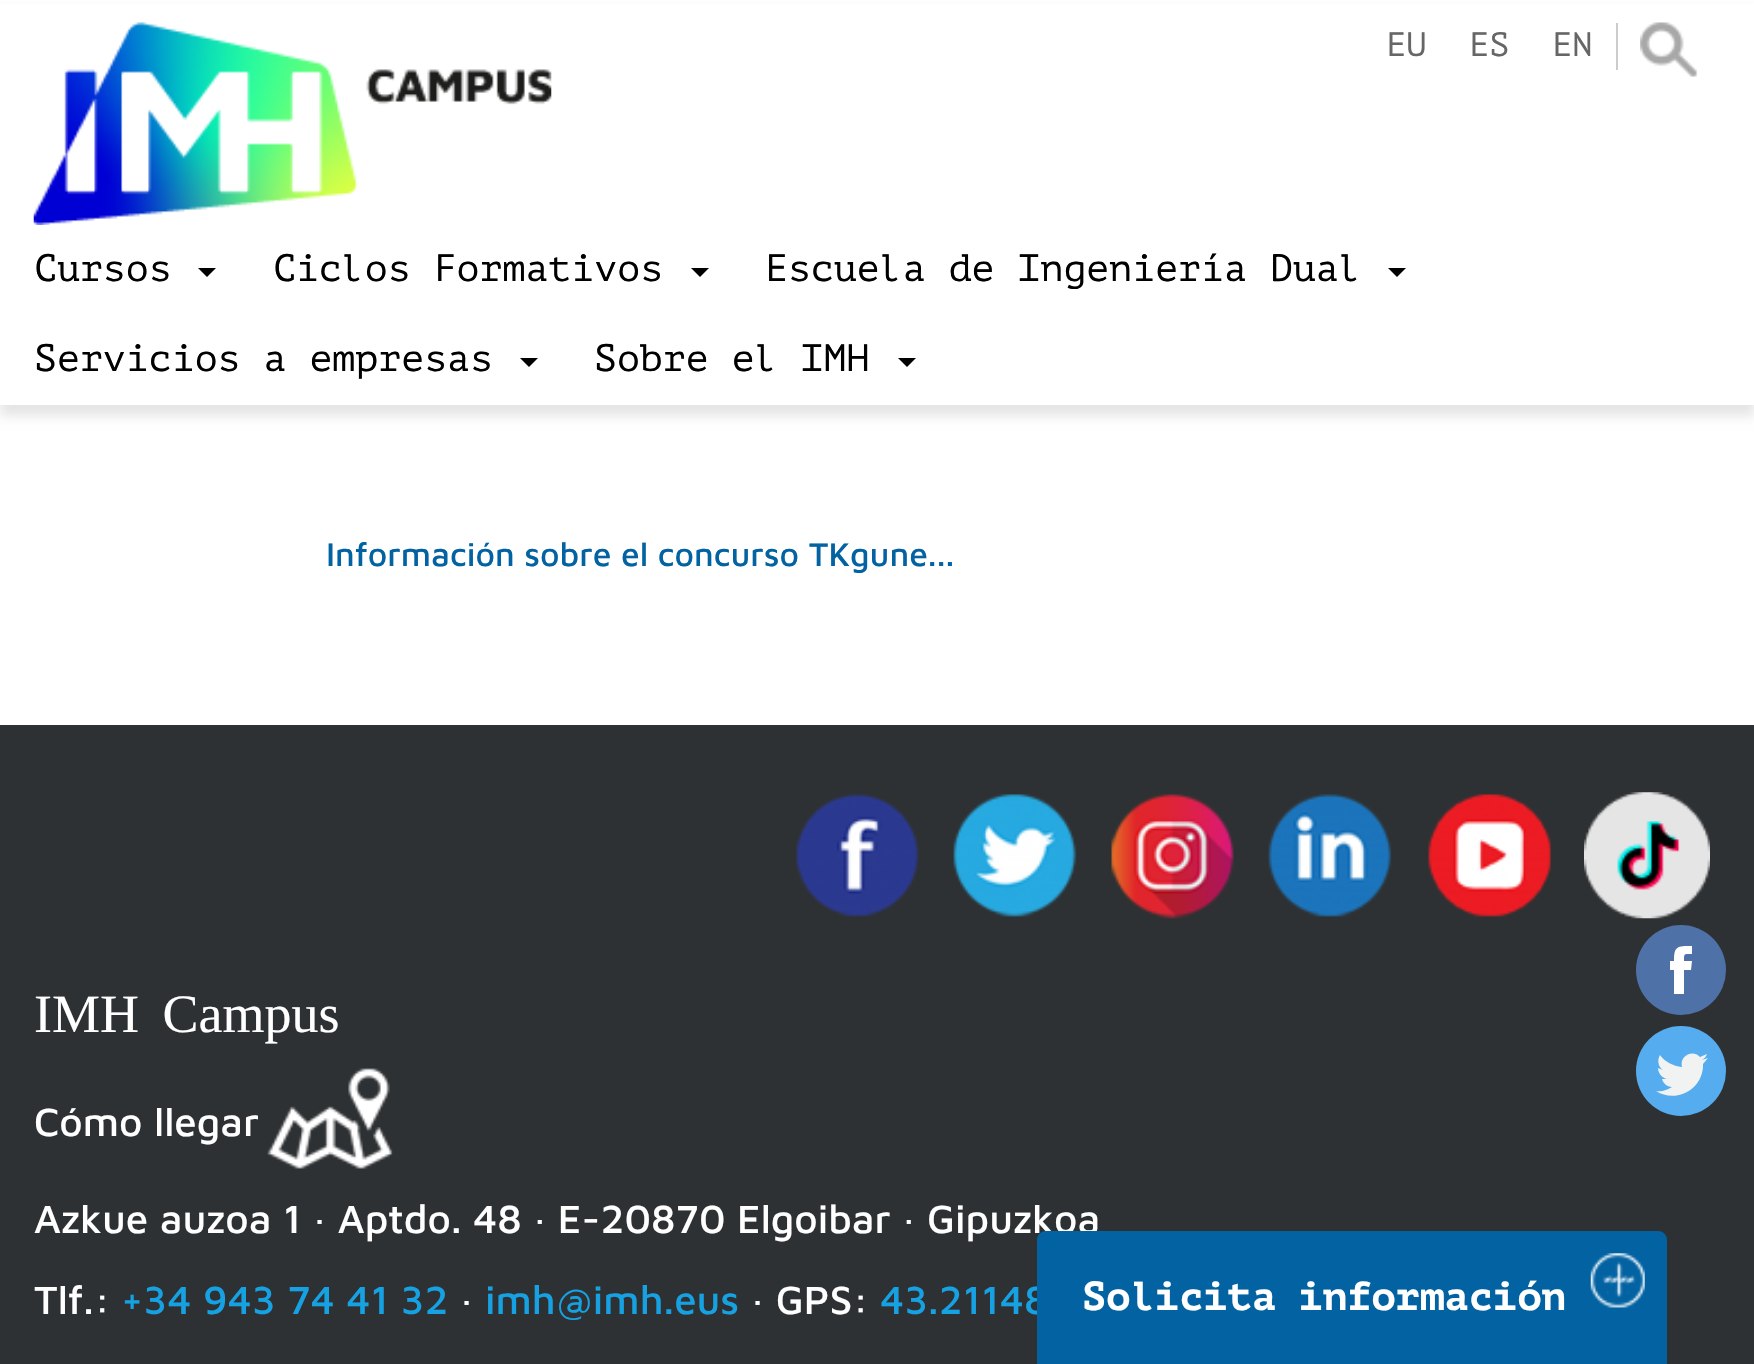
#include "include/core/SkBlurTypes.h"
#include "include/core/SkCanvas.h"
#include "include/core/SkData.h"
#include "include/core/SkFont.h"
#include "include/core/SkFontMgr.h"
#include "include/core/SkImage.h"
#include "include/core/SkMaskFilter.h"
#include "include/core/SkPaint.h"
#include "include/core/SkPathBuilder.h"
#include "include/core/SkTextBlob.h"
#include "include/effects/SkDashPathEffect.h"
#include "include/effects/SkGradientShader.h"
#include "include/utils/SkParsePath.h"

extern sk_sp<SkFontMgr> fontMgr;

static SkFont font(const char* family, int weight, float size, bool italic = false) {
    SkFontStyle style(weight, SkFontStyle::kNormal_Width,
        italic ? SkFontStyle::kItalic_Slant : SkFontStyle::kUpright_Slant);
    SkFont result(fontMgr->matchFamilyStyle(family, style), size);
    result.setSubpixel(true);
    return result;
}

static void drawLabel(SkCanvas* canvas, const char* s, float x, float y, const SkFont& font, SkColor color) {
    SkPaint ink(SkColor4f::FromColor(color));
    ink.setAntiAlias(true);
    canvas->drawString(s, x, y, font, ink);
}

static void drawTracked(SkCanvas* canvas, const char* s, float x, float y, const SkFont& font, const SkPaint& ink, float letter, float word) {
    std::vector<SkGlyphID> glyphs(font.countText(s, strlen(s), SkTextEncoding::kUTF8));
    std::vector<float> xs(glyphs.size());
    font.textToGlyphs(s, strlen(s), SkTextEncoding::kUTF8, glyphs);
    font.getXPos(glyphs, xs, x);
    float extra = 0;
    for (size_t i = 0; i < glyphs.size(); i++) {
        xs[i] += extra;
        extra += letter + word * (glyphs[i] == font.unicharToGlyph(' '));
    }
    canvas->drawTextBlob(SkTextBlob::MakeFromPosHGlyphs(glyphs, xs, y, font), 0, 0, ink);
}

static void fillRect(SkCanvas* canvas, float x, float y, float w, float h, SkColor color) {
    SkPaint ink(SkColor4f::FromColor(color));
    ink.setAntiAlias(true);
    canvas->drawRect(SkRect::MakeXYWH(x, y, w, h), ink);
}

static void drawPhoto(SkCanvas* canvas, const char* path, float x, float y, float w, float h) {
    auto image = SkImages::DeferredFromEncodedData(SkData::MakeFromFileName(path));
    canvas->drawImageRect(image, SkRect::MakeXYWH(x, y, w, h), SkSamplingOptions());
}

static SkPath parsePath(const char* data, bool evenOdd = false) {
    SkPath result = *SkParsePath::FromSVGString(data);
    if (evenOdd) result.setFillType(SkPathFillType::kEvenOdd);
    return result;
}

void draw(SkCanvas* canvas) {
    SkPaint paint;
    paint.setAntiAlias(true);
    canvas->clear(0xFFFFFFFF);
    paint.setColor(0x1A010101);
    paint.setMaskFilter(SkMaskFilter::MakeBlur(kNormal_SkBlurStyle, 5.5f));
    canvas->drawRect(SkRect::MakeXYWH(0, 11, 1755, 405), paint);
    paint.setMaskFilter(nullptr);
    fillRect(canvas, 0, 4, 1754, 401, 0xFFFFFFFF);
    drawPhoto(canvas, "assets/img1.png", 33, 22, 519, 203);
    SkFont font1 = font("PT Mono", 400, 33.75f);
    drawLabel(canvas, "EU", 1386, 56, font1, 0xFF666666);
    drawLabel(canvas, "ES", 1469, 56, font1, 0xFF666666);
    fillRect(canvas, 1616, 23, 2, 47, 0xFFCCCCCC);
    drawLabel(canvas, "EN", 1552, 56, font1, 0xFF666666);
    drawPhoto(canvas, "assets/img2.png", 1640, 22, 58, 55);
    SkFont font2 = font("PT Mono", 400, 38.25f);
    drawLabel(canvas, "Cursos", 34, 281, font2, 0xFF000000);
    paint.setColor(0xFF000000);
    canvas->drawPath(parsePath("M198 268H216L207 277Z"), paint);
    drawLabel(canvas, "Ciclos Formativos", 273, 281, font2, 0xFF000000);
    canvas->drawPath(parsePath("M691 268H709L700 277Z"), paint);
    drawLabel(canvas, "Escuela de Ingeniería Dual", 765, 281, font2, 0xFF000000);
    canvas->drawPath(parsePath("M1388 268H1406L1397 277Z"), paint);
    drawLabel(canvas, "Servicios a empresas", 34, 371, font2, 0xFF000000);
    canvas->drawPath(parsePath("M520 358H538L529 367Z"), paint);
    drawLabel(canvas, "Sobre el IMH", 594, 371, font2, 0xFF000000);
    canvas->drawPath(parsePath("M898 358H916L907 367Z"), paint);
    SkFont font3 = font("Maven Pro", 500, 33.75f);
    drawLabel(canvas, "Información sobre el concurso TKgune...", 326, 566, font3, 0xFF0262A2);
    fillRect(canvas, 0, 725, 1754, 639, 0xFF2E3133);
    paint.setColor(0xFF4E71A8);
    canvas->drawCircle(1681, 970, 45, paint);
    paint.setColor(0xFFFFFFFF);
    canvas->drawPath(parsePath("M1692 961H1684C1684 953 1684 954 1692 954V946C1677 946 1674 946 1674 961H1670V970H1674V994H1684V970H1691Z"), paint);
    paint.setColor(0xFF55ACEE);
    canvas->drawCircle(1681, 1071, 45, paint);
    paint.setColor(0xFFF1F2F2);
    canvas->drawPath(parsePath("M1708 1058L1702 1060C1704 1059 1706 1057 1707 1054L1700 1057C1693 1049 1679 1056 1682 1067C1673 1066 1665 1062 1660 1055C1657 1060 1658 1067 1663 1070L1658 1068C1658 1073 1662 1078 1667 1079H1662C1663 1083 1667 1087 1672 1087C1667 1090 1662 1092 1656 1091C1676 1104 1704 1089 1703 1064Z"), paint);
    drawPhoto(canvas, "assets/img3.png", 796, 794, 123, 123);
    drawPhoto(canvas, "assets/img4.png", 953, 794, 124, 123);
    drawPhoto(canvas, "assets/img5.png", 1111, 794, 123, 125);
    drawPhoto(canvas, "assets/img6.png", 1268, 794, 124, 123);
    drawPhoto(canvas, "assets/img7.png", 1428, 794, 123, 123);
    drawPhoto(canvas, "assets/img8.png", 1584, 792, 126, 127);
    SkFont font4 = font("Liberation Serif", 400, 54);
    paint.setColor(0xFFFFFFFF);
    drawTracked(canvas, "IMH Campus", 34, 1032, font4, paint, 0, 10);
    drawPhoto(canvas, "assets/img9.png", 267, 1068, 126, 101);
    SkFont font5 = font("Maven Pro", 500, 40.5f);
    drawLabel(canvas, "Cómo llegar", 34, 1136, font5, 0xFFFFFFFF);
    drawLabel(canvas, "Azkue auzoa 1 · Aptdo. 48 · E-20870 Elgoibar · Gipuzkoa", 34, 1233, font5, 0xFFFFFFFF);
    drawLabel(canvas, "Tlf.:", 34, 1314, font5, 0xFFFFFFFF);
    drawLabel(canvas, "+34 943 74 41 32", 121, 1314, font5, 0xFF16A1E3);
    drawLabel(canvas, "·", 460, 1314, font5, 0xFFFFFFFF);
    drawLabel(canvas, "imh@imh.eus", 485, 1314, font5, 0xFF16A1E3);
    drawLabel(canvas, "· GPS:", 751, 1314, font5, 0xFFFFFFFF);
    drawLabel(canvas, "43.21148", 880, 1314, font5, 0xFF16A1E3);
    paint.setColor(0xFF0262A2);
    canvas->drawPath(parsePath("M1046 1231H1658C1663 1231 1667 1235 1667 1240V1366H1037V1240C1037 1235 1041 1231 1046 1231Z"), paint);
    SkFont font6 = font("PT Mono", 700, 40.5f);
    paint.setColor(0xFFFFFFFF);
    drawTracked(canvas, "Solicita información", 1082, 1310, font6, paint, 0, -2);
    drawPhoto(canvas, "assets/img10.png", 1590, 1253, 55, 55);
}
